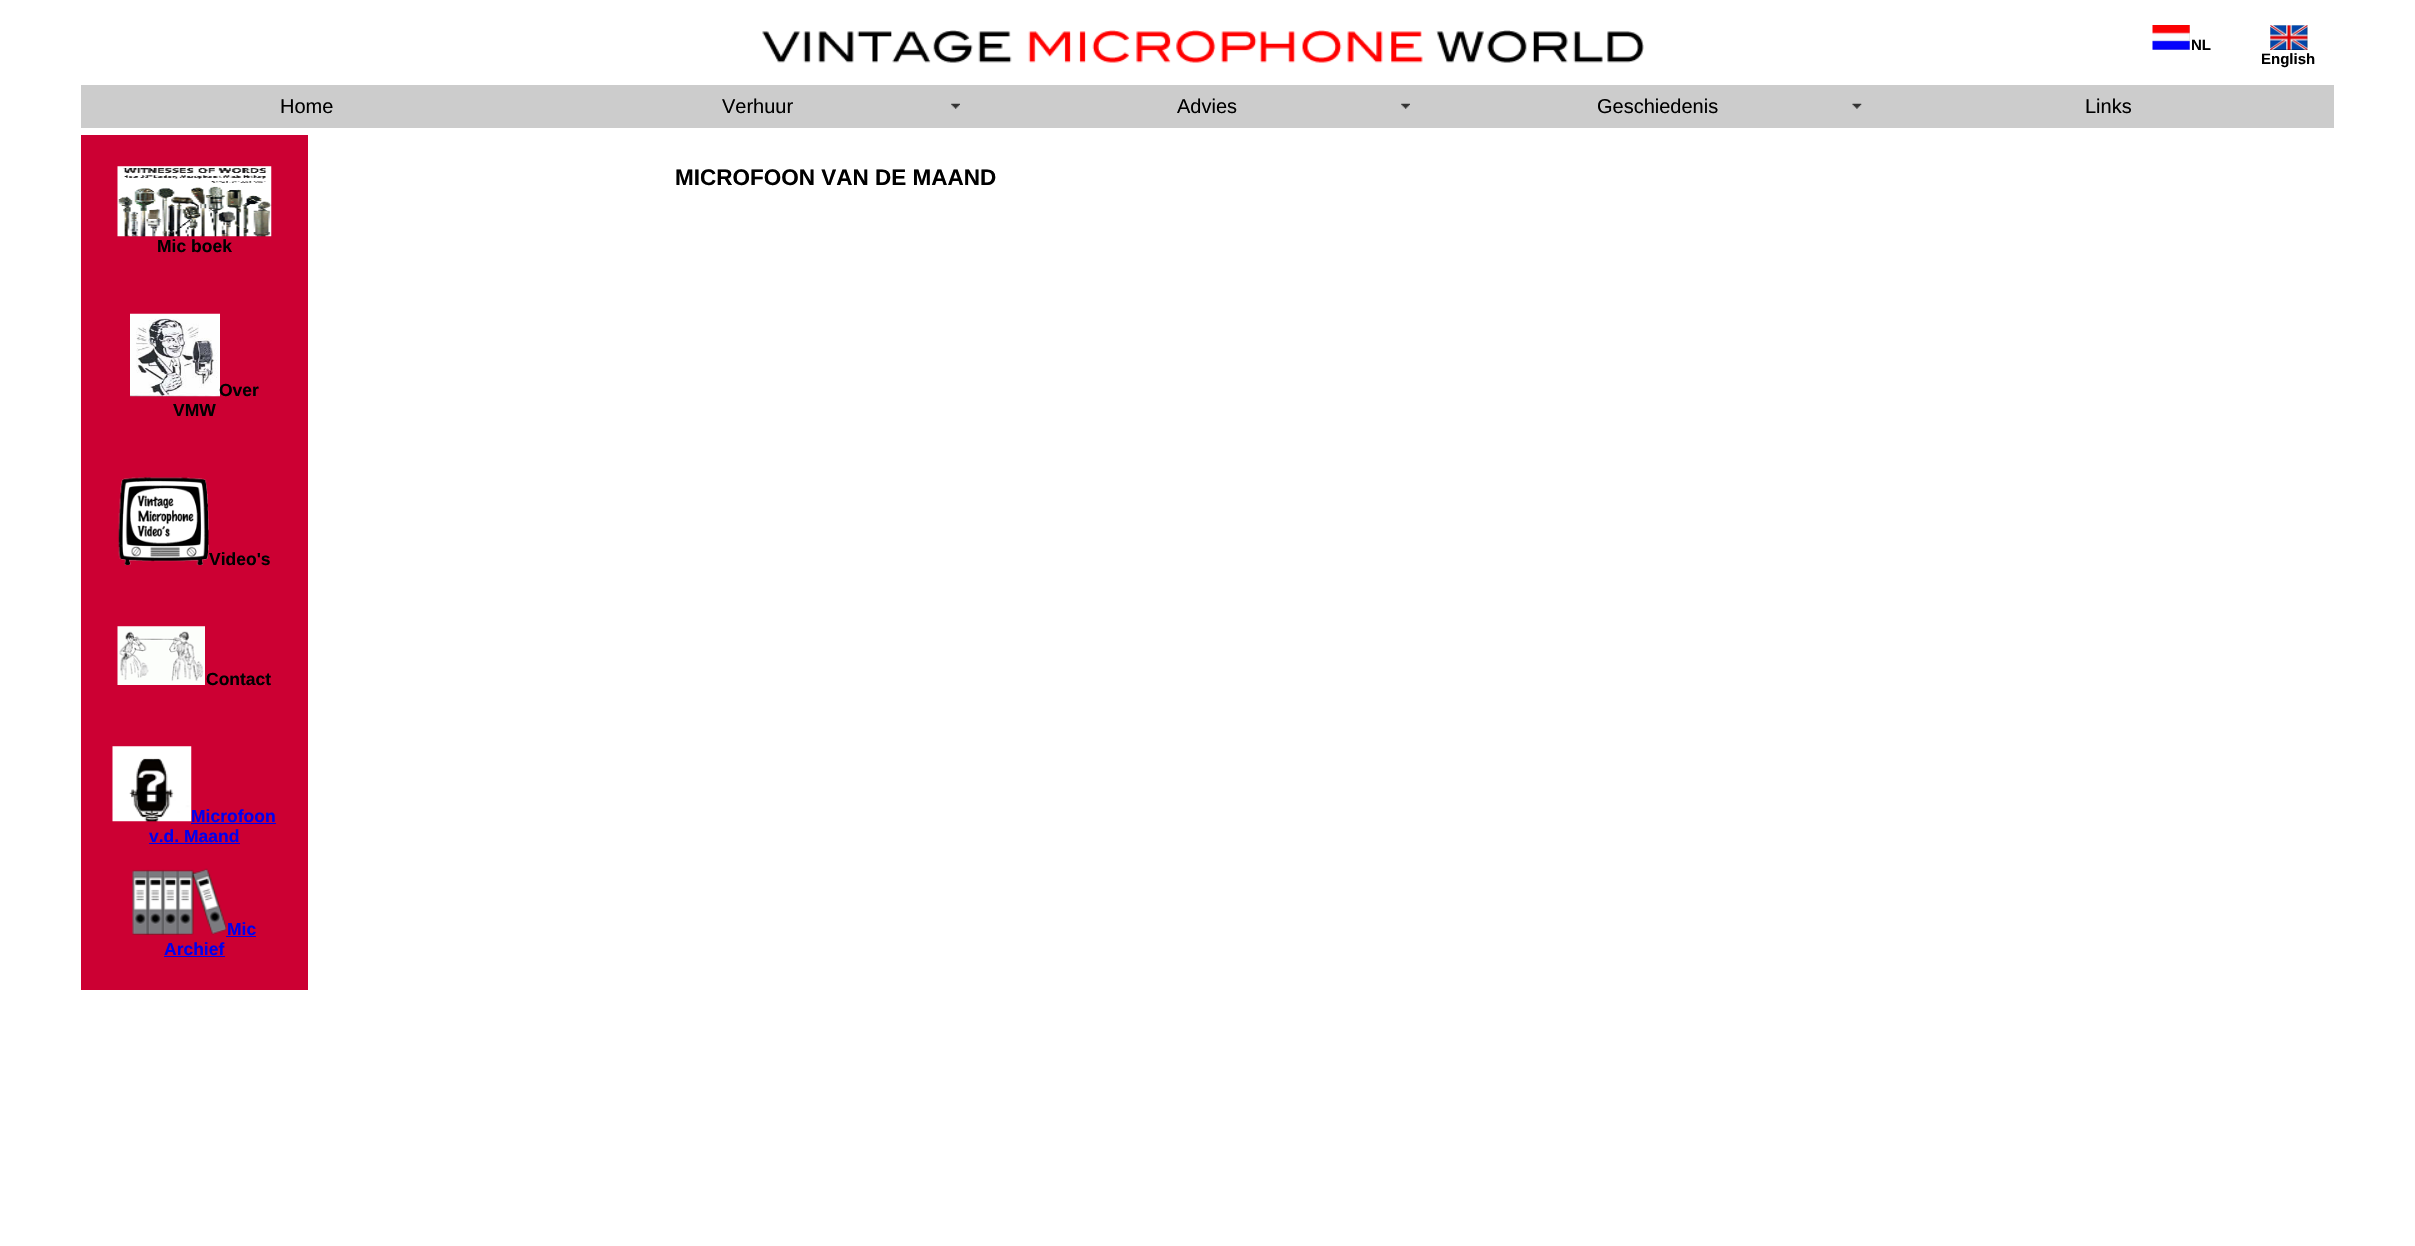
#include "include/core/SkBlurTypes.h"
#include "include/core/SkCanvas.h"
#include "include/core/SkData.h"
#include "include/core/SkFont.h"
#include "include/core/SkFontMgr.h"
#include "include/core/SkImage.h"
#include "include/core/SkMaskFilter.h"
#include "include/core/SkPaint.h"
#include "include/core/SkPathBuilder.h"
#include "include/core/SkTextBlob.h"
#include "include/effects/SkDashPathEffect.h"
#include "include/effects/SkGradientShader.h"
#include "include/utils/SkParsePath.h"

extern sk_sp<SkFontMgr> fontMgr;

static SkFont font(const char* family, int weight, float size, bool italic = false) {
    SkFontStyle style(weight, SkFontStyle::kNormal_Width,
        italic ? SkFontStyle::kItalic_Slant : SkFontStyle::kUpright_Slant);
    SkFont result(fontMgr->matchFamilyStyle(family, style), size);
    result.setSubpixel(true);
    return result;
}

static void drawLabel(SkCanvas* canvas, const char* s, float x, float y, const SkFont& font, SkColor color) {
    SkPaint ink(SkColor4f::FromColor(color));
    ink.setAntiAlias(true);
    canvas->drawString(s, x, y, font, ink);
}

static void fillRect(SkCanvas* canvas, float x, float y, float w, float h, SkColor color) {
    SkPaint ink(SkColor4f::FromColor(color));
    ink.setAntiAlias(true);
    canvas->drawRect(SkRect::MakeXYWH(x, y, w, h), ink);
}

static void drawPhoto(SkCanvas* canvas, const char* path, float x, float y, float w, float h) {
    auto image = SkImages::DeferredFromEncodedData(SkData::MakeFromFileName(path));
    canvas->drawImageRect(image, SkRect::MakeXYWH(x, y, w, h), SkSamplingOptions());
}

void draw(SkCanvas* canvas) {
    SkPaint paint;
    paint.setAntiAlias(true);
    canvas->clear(0xFFFFFFFF);
    drawPhoto(canvas, "assets/img1.png", 762, 30, 882, 33);
    drawPhoto(canvas, "assets/img2.png", 2152, 25, 38, 25);
    SkFont font1 = font("Liberation Sans", 700, 15);
    drawLabel(canvas, "NL", 2191, 50, font1, 0xFF000000);
    drawPhoto(canvas, "assets/img3.png", 2270, 25, 38, 25);
    drawLabel(canvas, "English", 2261, 64, font1, 0xFF000000);
    fillRect(canvas, 81, 85, 2253, 43, 0xFFCCCCCC);
    SkFont font2 = font("Liberation Sans", 400, 20);
    drawLabel(canvas, "Home", 280, 113, font2, 0xFF000000);
    drawPhoto(canvas, "assets/img4.png", 951, 103, 9, 6);
    drawLabel(canvas, "Verhuur", 722, 113, font2, 0xFF000000);
    drawPhoto(canvas, "assets/img4.png", 1401, 103, 9, 6);
    drawLabel(canvas, "Advies", 1177, 113, font2, 0xFF000000);
    drawPhoto(canvas, "assets/img5.png", 1852, 103, 10, 6);
    drawLabel(canvas, "Geschiedenis", 1597, 113, font2, 0xFF000000);
    drawLabel(canvas, "Links", 2085, 113, font2, 0xFF000000);
    SkFont font3 = font("Liberation Sans", 700, 22.5f);
    drawLabel(canvas, "MICROFOON VAN DE MAAND", 675, 185, font3, 0xFF000000);
    fillRect(canvas, 81, 135, 227, 855, 0xFFCC0033);
    drawPhoto(canvas, "assets/img6.png", 117, 166, 155, 71);
    SkFont font4 = font("Liberation Sans", 700, 17.5f);
    drawLabel(canvas, "Mic boek", 157, 252, font4, 0xFF000000);
    drawPhoto(canvas, "assets/img7.png", 130, 313, 90, 84);
    drawLabel(canvas, "Over", 219, 396, font4, 0xFF000000);
    drawLabel(canvas, "VMW", 173, 416, font4, 0xFF000000);
    drawPhoto(canvas, "assets/img8.png", 118, 477, 91, 88);
    drawLabel(canvas, "Video's", 209, 565, font4, 0xFF000000);
    drawPhoto(canvas, "assets/img9.png", 117, 626, 88, 59);
    drawLabel(canvas, "Contact", 206, 685, font4, 0xFF000000);
    drawPhoto(canvas, "assets/img10.png", 112, 746, 80, 76);
    drawLabel(canvas, "Microfoon", 191, 822, font4, 0xFF0000EE);
    fillRect(canvas, 191, 823, 85, 1, 0xFF0000EE);
    drawLabel(canvas, "v.d. Maand", 149, 842, font4, 0xFF0000EE);
    fillRect(canvas, 149, 843, 91, 1, 0xFF0000EE);
    drawPhoto(canvas, "assets/img11.png", 132, 868, 95, 67);
    drawLabel(canvas, "Mic", 227, 935, font4, 0xFF0000EE);
    fillRect(canvas, 226, 936, 30, 1, 0xFF0000EE);
    drawLabel(canvas, "Archief", 164, 955, font4, 0xFF0000EE);
    fillRect(canvas, 164, 956, 61, 1, 0xFF0000EE);
}
